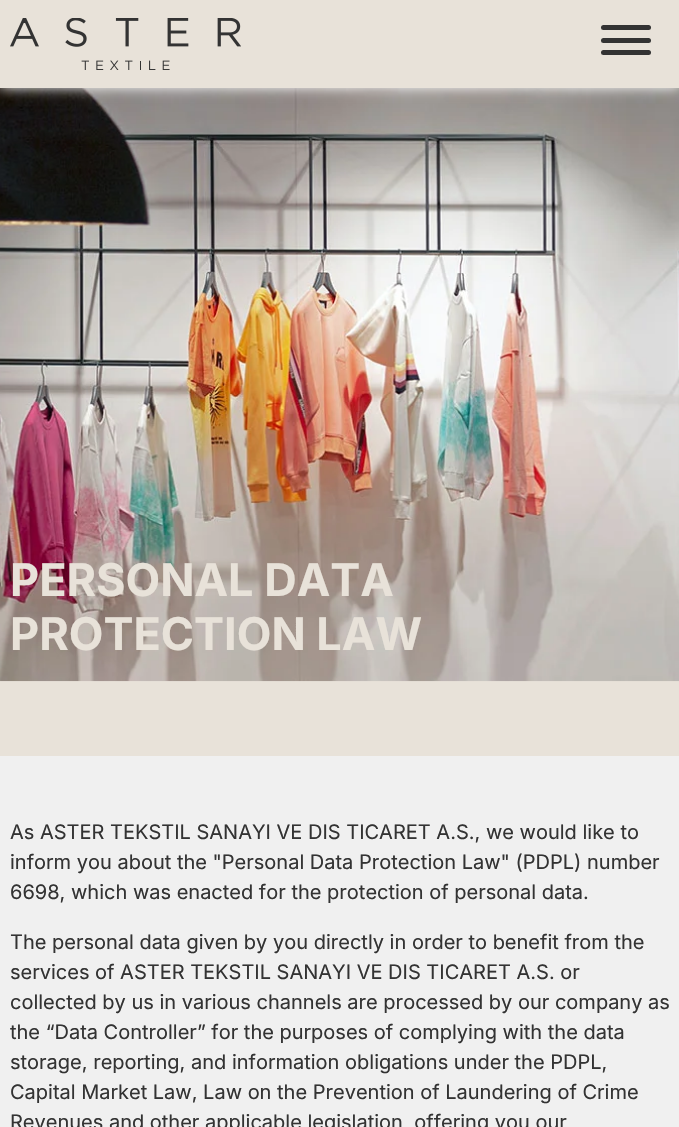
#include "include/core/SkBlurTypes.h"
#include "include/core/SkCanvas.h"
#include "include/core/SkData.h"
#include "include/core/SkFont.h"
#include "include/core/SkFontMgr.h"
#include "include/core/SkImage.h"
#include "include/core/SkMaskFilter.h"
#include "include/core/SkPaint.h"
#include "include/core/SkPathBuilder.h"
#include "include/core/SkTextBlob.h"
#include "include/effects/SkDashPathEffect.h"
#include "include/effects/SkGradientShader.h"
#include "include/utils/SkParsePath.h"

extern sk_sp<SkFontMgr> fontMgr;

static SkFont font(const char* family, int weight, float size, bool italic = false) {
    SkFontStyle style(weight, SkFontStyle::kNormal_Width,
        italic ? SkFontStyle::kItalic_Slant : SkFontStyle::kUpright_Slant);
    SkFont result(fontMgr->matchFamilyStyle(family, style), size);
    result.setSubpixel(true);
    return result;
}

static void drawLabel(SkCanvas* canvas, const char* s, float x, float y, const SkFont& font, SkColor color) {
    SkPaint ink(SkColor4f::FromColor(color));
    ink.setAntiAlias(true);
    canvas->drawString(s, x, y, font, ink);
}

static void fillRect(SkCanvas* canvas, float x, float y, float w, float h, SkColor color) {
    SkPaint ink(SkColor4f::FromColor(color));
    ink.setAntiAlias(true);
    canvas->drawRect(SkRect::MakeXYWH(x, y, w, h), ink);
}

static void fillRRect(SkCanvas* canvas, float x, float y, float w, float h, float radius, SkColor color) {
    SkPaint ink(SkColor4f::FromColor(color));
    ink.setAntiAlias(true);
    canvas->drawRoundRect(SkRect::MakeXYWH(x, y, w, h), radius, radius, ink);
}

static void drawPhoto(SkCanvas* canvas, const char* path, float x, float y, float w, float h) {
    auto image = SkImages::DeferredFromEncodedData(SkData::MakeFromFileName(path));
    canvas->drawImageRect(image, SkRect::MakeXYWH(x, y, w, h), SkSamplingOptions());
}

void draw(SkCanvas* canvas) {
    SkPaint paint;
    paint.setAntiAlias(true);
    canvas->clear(0xFFF0F0F0);
    fillRect(canvas, 0, 681, 679, 75, 0xFFE8E2D9);
    drawPhoto(canvas, "assets/img2.png", 0, 88, 679, 594);
    paint.setColor(0xFFFAFAFA);
    paint.setMaskFilter(SkMaskFilter::MakeBlur(kNormal_SkBlurStyle, 6));
    canvas->drawRect(SkRect::MakeXYWH(0, 0, 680, 88), paint);
    paint.setMaskFilter(nullptr);
    fillRect(canvas, 0, 0, 679, 88, 0xFFE8E2D9);
    drawPhoto(canvas, "assets/img1.png", 10, 18, 231, 52);
    fillRRect(canvas, 601, 25, 50, 5, 2.5f, 0xFF333333);
    fillRRect(canvas, 601, 38, 50, 5, 2.5f, 0xFF333333);
    fillRRect(canvas, 601, 50, 50, 5, 2.5f, 0xFF333333);
    SkFont font1 = font("Inter", 700, 45);
    drawLabel(canvas, "PERSONAL DATA", 10, 596, font1, 0xFFE8E2D9);
    drawLabel(canvas, "PROTECTION LAW", 10, 650, font1, 0xFFE8E2D9);
    SkFont font2 = font("Inter", 400, 20);
    drawLabel(canvas, "As ASTER TEKSTIL SANAYI VE DIS TICARET A.S., we would like to", 10, 839, font2, 0xFF333333);
    drawLabel(canvas, "inform you about the \"Personal Data Protection Law\" (PDPL) number", 10, 869, font2, 0xFF333333);
    drawLabel(canvas, "6698, which was enacted for the protection of personal data.", 10, 899, font2, 0xFF333333);
    drawLabel(canvas, "The personal data given by you directly in order to benefit from the", 10, 949, font2, 0xFF333333);
    drawLabel(canvas, "services of ASTER TEKSTIL SANAYI VE DIS TICARET A.S. or", 10, 979, font2, 0xFF333333);
    drawLabel(canvas, "collected by us in various channels are processed by our company as", 10, 1009, font2, 0xFF333333);
    drawLabel(canvas, "the “Data Controller” for the purposes of complying with the data", 10, 1039, font2, 0xFF333333);
    drawLabel(canvas, "storage, reporting, and information obligations under the PDPL,", 10, 1069, font2, 0xFF333333);
    drawLabel(canvas, "Capital Market Law, Law on the Prevention of Laundering of Crime", 10, 1099, font2, 0xFF333333);
    drawLabel(canvas, "Revenues and other applicable legislation, offering you our", 10, 1129, font2, 0xFF333333);
}
